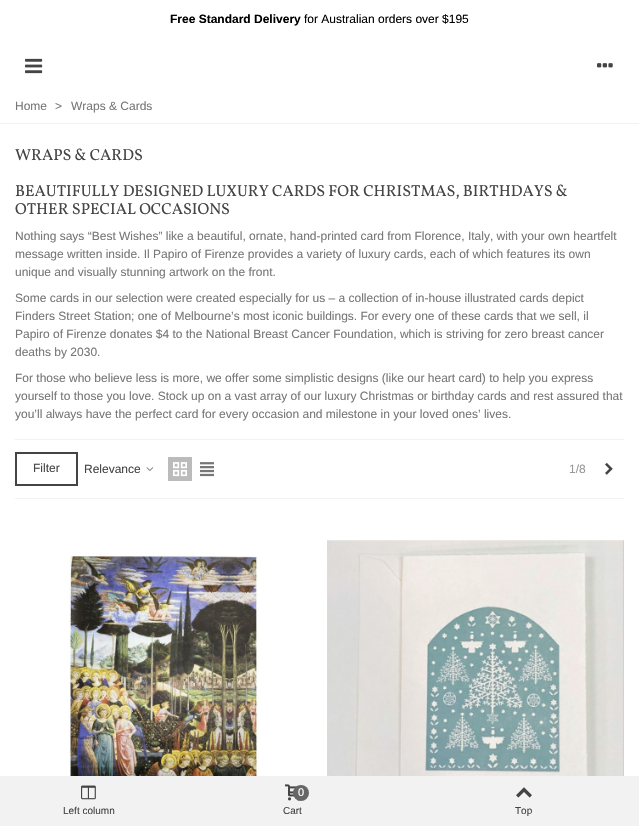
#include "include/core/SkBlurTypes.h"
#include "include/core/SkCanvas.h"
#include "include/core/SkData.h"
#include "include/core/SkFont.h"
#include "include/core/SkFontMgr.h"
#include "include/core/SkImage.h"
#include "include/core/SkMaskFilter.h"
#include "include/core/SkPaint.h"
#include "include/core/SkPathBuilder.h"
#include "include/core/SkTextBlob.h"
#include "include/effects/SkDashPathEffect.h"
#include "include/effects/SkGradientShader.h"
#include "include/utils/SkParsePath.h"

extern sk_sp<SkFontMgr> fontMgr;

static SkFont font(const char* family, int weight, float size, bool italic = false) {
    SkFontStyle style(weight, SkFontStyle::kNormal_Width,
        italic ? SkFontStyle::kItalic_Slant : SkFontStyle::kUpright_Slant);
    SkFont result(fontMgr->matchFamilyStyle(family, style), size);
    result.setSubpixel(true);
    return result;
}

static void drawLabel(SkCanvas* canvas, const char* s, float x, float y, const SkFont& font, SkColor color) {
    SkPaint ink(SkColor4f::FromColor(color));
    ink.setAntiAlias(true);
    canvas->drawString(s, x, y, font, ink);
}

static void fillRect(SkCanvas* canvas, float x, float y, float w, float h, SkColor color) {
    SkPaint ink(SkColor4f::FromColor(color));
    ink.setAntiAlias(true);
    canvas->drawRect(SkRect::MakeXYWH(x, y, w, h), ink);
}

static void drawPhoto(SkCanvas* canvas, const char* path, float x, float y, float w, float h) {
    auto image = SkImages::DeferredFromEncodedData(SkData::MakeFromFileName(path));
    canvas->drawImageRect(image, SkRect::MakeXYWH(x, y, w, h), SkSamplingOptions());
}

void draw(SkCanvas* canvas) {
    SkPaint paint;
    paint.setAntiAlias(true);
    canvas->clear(0xFFFFFFFF);
    SkFont font1 = font("Liberation Sans", 700, 12);
    drawLabel(canvas, "Free Standard Delivery", 170, 23, font1, 0xFF000000);
    SkFont font2 = font("Liberation Sans", 400, 12);
    drawLabel(canvas, "for Australian orders over $195", 304, 23, font2, 0xFF000000);
    drawPhoto(canvas, "assets/img1.png", 25, 58, 18, 16);
    drawPhoto(canvas, "assets/img2.png", 597, 63, 16, 5);
    fillRect(canvas, 0, 123, 639, 1, 0xFFF2F2F2);
    drawLabel(canvas, "Home", 15, 110, font2, 0xFF777777);
    drawLabel(canvas, ">", 55, 110, font2, 0xFF777777);
    drawLabel(canvas, "Wraps & Cards", 71, 110, font2, 0xFF777777);
    SkFont font3 = font("Vollkorn", 400, 16);
    drawLabel(canvas, "WRAPS & CARDS", 15, 160, font3, 0xFF444444);
    drawLabel(canvas, "BEAUTIFULLY DESIGNED LUXURY CARDS FOR CHRISTMAS, BIRTHDAYS &", 15, 196, font3, 0xFF444444);
    drawLabel(canvas, "OTHER SPECIAL OCCASIONS", 15, 214, font3, 0xFF444444);
    drawLabel(canvas, "Nothing says “Best Wishes” like a beautiful, ornate, hand-printed card from Florence, Italy, with your own heartfelt", 15, 240, font2, 0xFF777777);
    drawLabel(canvas, "message written inside. Il Papiro of Firenze provides a variety of luxury cards, each of which features its own", 15, 258, font2, 0xFF777777);
    drawLabel(canvas, "unique and visually stunning artwork on the front.", 15, 276, font2, 0xFF777777);
    drawLabel(canvas, "Some cards in our selection were created especially for us – a collection of in-house illustrated cards depict", 15, 302, font2, 0xFF777777);
    drawLabel(canvas, "Finders Street Station; one of Melbourne’s most iconic buildings. For every one of these cards that we sell, il", 15, 320, font2, 0xFF777777);
    drawLabel(canvas, "Papiro of Firenze donates $4 to the National Breast Cancer Foundation, which is striving for zero breast cancer", 15, 338, font2, 0xFF777777);
    drawLabel(canvas, "deaths by 2030.", 15, 356, font2, 0xFF777777);
    drawLabel(canvas, "For those who believe less is more, we offer some simplistic designs (like our heart card) to help you express", 15, 382, font2, 0xFF777777);
    drawLabel(canvas, "yourself to those you love. Stock up on a vast array of our luxury Christmas or birthday cards and rest assured that", 15, 400, font2, 0xFF777777);
    drawLabel(canvas, "you’ll always have the perfect card for every occasion and milestone in your loved ones’ lives.", 15, 418, font2, 0xFF777777);
    fillRect(canvas, 15, 439, 609, 1, 0xFFF2F2F2);
    fillRect(canvas, 15, 498, 609, 1, 0xFFF2F2F2);
    paint.setStroke(true);
    paint.setStrokeWidth(2);
    paint.setColor(0xFF444444);
    canvas->drawRect(SkRect::MakeXYWH(16, 453, 61, 32), paint);
    drawLabel(canvas, "Filter", 33, 472, font2, 0xFF444444);
    drawLabel(canvas, "Relevance", 84, 473, font2, 0xFF444444);
    drawPhoto(canvas, "assets/img3.png", 146, 467, 8, 4);
    fillRect(canvas, 168, 457, 24, 24, 0xFFBBBBBB);
    drawPhoto(canvas, "assets/img4.png", 173, 462, 14, 15);
    drawPhoto(canvas, "assets/img5.png", 200, 462, 14, 15);
    drawLabel(canvas, "1/8", 569, 473, font2, 0xFF999999);
    drawPhoto(canvas, "assets/img6.png", 605, 462, 8, 13);
    drawPhoto(canvas, "assets/img7.png", 69, 553, 190, 223);
    drawPhoto(canvas, "assets/img8.png", 327, 540, 297, 236);
    fillRect(canvas, 0, 776, 639, 50, 0xFFF2F2F2);
    drawPhoto(canvas, "assets/img9.png", 81, 785, 15, 15);
    SkFont font4 = font("Liberation Sans", 400, 10);
    drawLabel(canvas, "Left column", 63, 814, font4, 0xFF444444);
    drawPhoto(canvas, "assets/img10.png", 285, 784, 15, 17);
    paint.setStroke(false);
    paint.setColor(0xFF666666);
    canvas->drawCircle(301, 793, 8, paint);
    SkFont font5 = font("Liberation Sans", 400, 11);
    drawLabel(canvas, "0", 298, 796, font5, 0xFFFFFFFF);
    drawLabel(canvas, "Cart", 283, 814, font4, 0xFF444444);
    drawPhoto(canvas, "assets/img11.png", 516, 787, 16, 11);
    drawLabel(canvas, "Top", 515, 814, font4, 0xFF444444);
}
